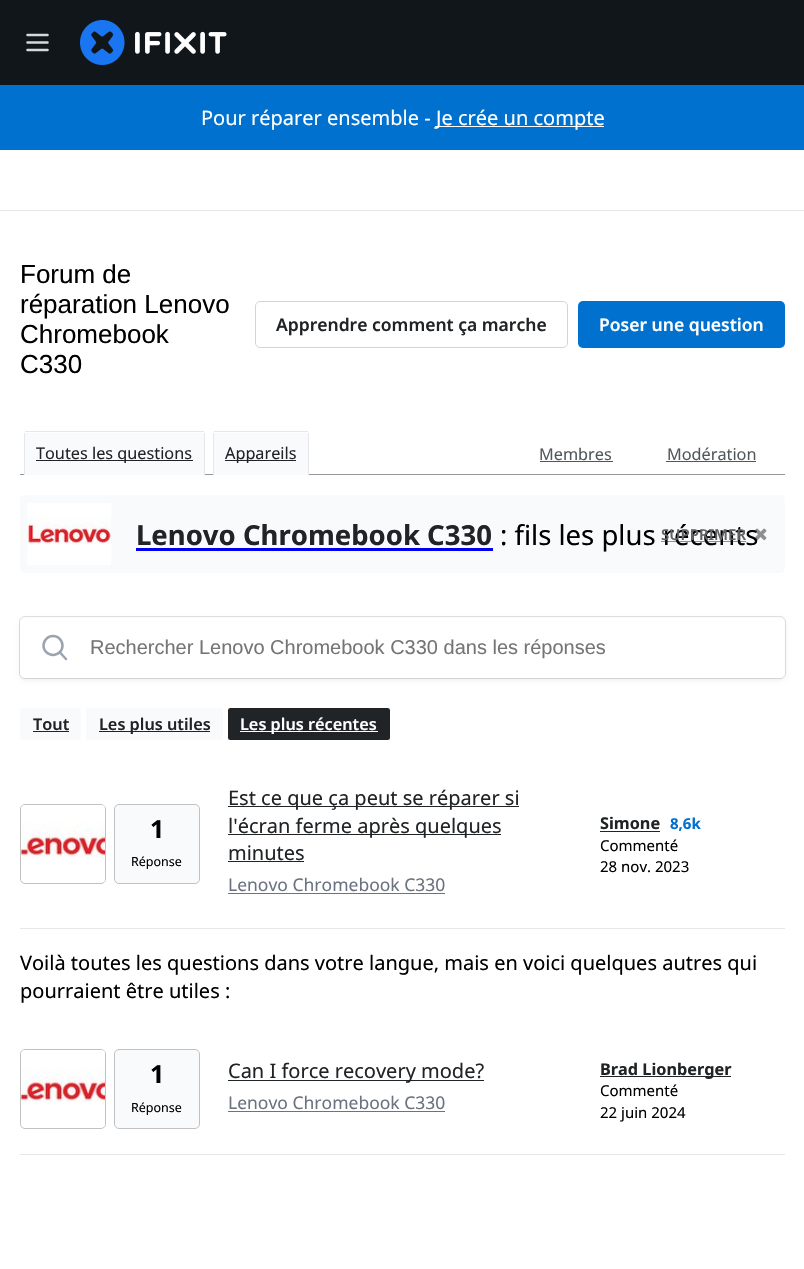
#include "include/core/SkBlurTypes.h"
#include "include/core/SkCanvas.h"
#include "include/core/SkData.h"
#include "include/core/SkFont.h"
#include "include/core/SkFontMgr.h"
#include "include/core/SkImage.h"
#include "include/core/SkMaskFilter.h"
#include "include/core/SkPaint.h"
#include "include/core/SkPathBuilder.h"
#include "include/core/SkTextBlob.h"
#include "include/effects/SkDashPathEffect.h"
#include "include/effects/SkGradientShader.h"
#include "include/utils/SkParsePath.h"

extern sk_sp<SkFontMgr> fontMgr;

static SkFont font(const char* family, int weight, float size, bool italic = false) {
    SkFontStyle style(weight, SkFontStyle::kNormal_Width,
        italic ? SkFontStyle::kItalic_Slant : SkFontStyle::kUpright_Slant);
    SkFont result(fontMgr->matchFamilyStyle(family, style), size);
    result.setSubpixel(true);
    return result;
}

static void drawLabel(SkCanvas* canvas, const char* s, float x, float y, const SkFont& font, SkColor color) {
    SkPaint ink(SkColor4f::FromColor(color));
    ink.setAntiAlias(true);
    canvas->drawString(s, x, y, font, ink);
}

static void fillRect(SkCanvas* canvas, float x, float y, float w, float h, SkColor color) {
    SkPaint ink(SkColor4f::FromColor(color));
    ink.setAntiAlias(true);
    canvas->drawRect(SkRect::MakeXYWH(x, y, w, h), ink);
}

static void fillRRect(SkCanvas* canvas, float x, float y, float w, float h, float radius, SkColor color) {
    SkPaint ink(SkColor4f::FromColor(color));
    ink.setAntiAlias(true);
    canvas->drawRoundRect(SkRect::MakeXYWH(x, y, w, h), radius, radius, ink);
}

static void drawPhoto(SkCanvas* canvas, const char* path, float x, float y, float w, float h) {
    auto image = SkImages::DeferredFromEncodedData(SkData::MakeFromFileName(path));
    canvas->drawImageRect(image, SkRect::MakeXYWH(x, y, w, h), SkSamplingOptions());
}

static SkPath parsePath(const char* data, bool evenOdd = false) {
    SkPath result = *SkParsePath::FromSVGString(data);
    if (evenOdd) result.setFillType(SkPathFillType::kEvenOdd);
    return result;
}

void draw(SkCanvas* canvas) {
    SkPaint paint;
    paint.setAntiAlias(true);
    canvas->clear(0xFFFFFFFF);
    fillRect(canvas, 0, 0, 804, 85, 0xFF11161A);
    paint.setStroke(true);
    paint.setStrokeWidth(2.5f);
    paint.setStrokeCap(SkPaint::kRound_Cap);
    paint.setStrokeJoin(SkPaint::kRound_Join);
    paint.setColor(0xFFD2DADF);
    canvas->drawPath(parsePath("M27.5 42.5H47.5M27.5 35H47.5M27.5 50H47.5"), paint);
    drawPhoto(canvas, "assets/img1.png", 80, 20, 147, 45);
    fillRect(canvas, 0, 85, 804, 65, 0xFF0071CE);
    SkFont font1 = font("Noto Sans", 400, 20);
    drawLabel(canvas, "Pour réparer ensemble -", 201, 125, font1, 0xFFFFFFFF);
    fillRect(canvas, 435, 126, 169, 1, 0xFFFFFFFF);
    drawLabel(canvas, "Je crée un compte", 436, 125, font1, 0xFFFFFFFF);
    fillRect(canvas, 0, 210, 804, 1, 0xFFE5E7EB);
    SkFont font2 = font("Liberation Sans", 400, 26);
    drawLabel(canvas, "Forum de", 20, 283, font2, 0xFF000000);
    drawLabel(canvas, "réparation Lenovo", 20, 313, font2, 0xFF000000);
    drawLabel(canvas, "Chromebook", 20, 343, font2, 0xFF000000);
    drawLabel(canvas, "C330", 20, 373, font2, 0xFF000000);
    paint.setStrokeWidth(1);
    paint.setStrokeCap(SkPaint::kButt_Cap);
    paint.setStrokeJoin(SkPaint::kMiter_Join);
    paint.setColor(0xFFD1D5DB);
    canvas->drawRoundRect(SkRect::MakeXYWH(255.5f, 301.5f, 312, 46), 4.5f, 4.5f, paint);
    SkFont font3 = font("Noto Sans", 600, 17.5f);
    drawLabel(canvas, "Apprendre comment ça marche", 276, 331, font3, 0xFF212426);
    fillRRect(canvas, 578, 301, 207, 47, 5, 0xFF0071CE);
    drawLabel(canvas, "Poser une question", 599, 331, font3, 0xFFFFFFFF);
    fillRect(canvas, 20, 474, 765, 1, 0xFF979797);
    paint.setStroke(false);
    paint.setColor(0xFFF9FAFB);
    canvas->drawPath(parsePath("M26 433H203C203.5 433 204 433.5 204 434V475H25V434C25 433.5 25.5 433 26 433Z"), paint);
    fillRect(canvas, 25, 431, 179, 1, 0xFFE5E7EB);
    fillRect(canvas, 204, 433, 1, 42, 0xFFE5E7EB);
    fillRect(canvas, 24, 433, 1, 42, 0xFFE5E7EB);
    fillRect(canvas, 36, 460, 157, 1, 0xFF212426);
    SkFont font4 = font("Noto Sans", 400, 16.25f);
    drawLabel(canvas, "Toutes les questions", 36, 459, font4, 0xFF212426);
    canvas->drawPath(parsePath("M215 433H307C307.5 433 308 433.5 308 434V475H214V434C214 433.5 214.5 433 215 433Z"), paint);
    fillRect(canvas, 214, 431, 94, 1, 0xFFE5E7EB);
    fillRect(canvas, 308, 433, 1, 42, 0xFFE5E7EB);
    fillRect(canvas, 213, 433, 1, 42, 0xFFE5E7EB);
    fillRect(canvas, 225, 460, 71, 1, 0xFF212426);
    drawLabel(canvas, "Appareils", 225, 459, font4, 0xFF212426);
    drawLabel(canvas, "Membres", 539, 460, font4, 0xFF50585D);
    fillRect(canvas, 540, 461, 73, 1, 0xFF50585D);
    drawLabel(canvas, "Modération", 667, 460, font4, 0xFF50585D);
    fillRect(canvas, 666, 461, 90, 1, 0xFF50585D);
    fillRRect(canvas, 20, 495, 765, 78, 5, 0xFFF9FAFB);
    drawPhoto(canvas, "assets/img2.png", 27, 503, 85, 62);
    SkFont font5 = font("Noto Sans", 700, 27.5f);
    drawLabel(canvas, "Lenovo Chromebook C330", 136, 545, font5, 0xFF212426);
    fillRect(canvas, 136, 548, 357, 3, 0xFF0000EE);
    SkFont font6 = font("Noto Sans", 400, 27.5f);
    drawLabel(canvas, ": fils les plus récents", 500, 545, font6, 0xFF000000);
    SkFont font7 = font("Noto Sans", 600, 15);
    drawLabel(canvas, "SUPPRIMER", 661, 540, font7, 0xFF616364);
    fillRect(canvas, 661, 541, 85, 1, 0x80212426);
    drawPhoto(canvas, "assets/img3.png", 754, 528, 13, 13);
    paint.setColor(0x12000306);
    paint.setMaskFilter(SkMaskFilter::MakeBlur(kNormal_SkBlurStyle, 2.5f));
    canvas->drawRoundRect(SkRect::MakeXYWH(20, 620, 765, 60), 5, 5, paint);
    paint.setMaskFilter(nullptr);
    paint.setStroke(true);
    paint.setColor(0x1F000306);
    canvas->drawRoundRect(SkRect::MakeXYWH(19.5f, 616.5f, 766, 62), 5.5f, 5.5f, paint);
    fillRRect(canvas, 20, 618, 765, 60, 5, 0xFFFFFFFF);
    paint.setStrokeWidth(2.5f);
    paint.setColor(0xFF9CA3AF);
    canvas->drawCircle(53, 645.5f, 9.5f, paint);
    paint.setStrokeCap(SkPaint::kRound_Cap);
    paint.setStrokeJoin(SkPaint::kRound_Join);
    canvas->drawPath(parsePath("M66 659L60 652.5"), paint);
    SkFont font8 = font("Liberation Sans", 400, 20);
    drawLabel(canvas, "Rechercher Lenovo Chromebook C330 dans les réponses", 90, 654, font8, 0xFF757575);
    fillRRect(canvas, 20, 708, 61, 32, 2.5f, 0xFFF9FAFB);
    SkFont font9 = font("Noto Sans", 600, 16.25f);
    drawLabel(canvas, "Tout", 33, 730, font9, 0xFF212426);
    fillRect(canvas, 33, 731, 36, 1, 0xFF212426);
    fillRRect(canvas, 86, 708, 137, 32, 2.5f, 0xFFF9FAFB);
    fillRect(canvas, 99, 731, 111, 1, 0xFF212426);
    drawLabel(canvas, "Les plus utiles", 99, 730, font9, 0xFF212426);
    fillRRect(canvas, 228, 708, 162, 32, 2.5f, 0xFF212426);
    fillRect(canvas, 240, 731, 138, 1, 0xFFFFFFFF);
    drawLabel(canvas, "Les plus récentes", 240, 730, font9, 0xFFFFFFFF);
    fillRect(canvas, 20, 928, 765, 1, 0xFFE5E7EB);
    paint.setStrokeWidth(1);
    paint.setStrokeCap(SkPaint::kButt_Cap);
    paint.setStrokeJoin(SkPaint::kMiter_Join);
    paint.setColor(0xFFC1C1C1);
    canvas->drawRoundRect(SkRect::MakeXYWH(20.5f, 804.5f, 85, 79), 4.5f, 4.5f, paint);
    drawPhoto(canvas, "assets/img4.png", 21, 805, 84, 77);
    paint.setStroke(false);
    paint.setColor(0xFFF9FAFB);
    canvas->drawRoundRect(SkRect::MakeXYWH(114.5f, 804.5f, 85, 79), 4.5f, 4.5f, paint);
    paint.setStroke(true);
    paint.setColor(0xFFC1C1C1);
    canvas->drawRoundRect(SkRect::MakeXYWH(114.5f, 804.5f, 85, 79), 4.5f, 4.5f, paint);
    SkFont font10 = font("Noto Sans", 700, 25);
    drawLabel(canvas, "1", 150, 838, font10, 0xFF000000);
    SkFont font11 = font("Noto Sans", 400, 12.5f);
    drawLabel(canvas, "Réponse", 131, 866, font11, 0xFF000000);
    fillRect(canvas, 228, 806, 291, 1, 0xFF212426);
    drawLabel(canvas, "Est ce que ça peut se réparer si", 228, 805, font1, 0xFF212426);
    fillRect(canvas, 228, 834, 273, 1, 0xFF212426);
    drawLabel(canvas, "l'écran ferme après quelques", 228, 833, font1, 0xFF212426);
    drawLabel(canvas, "minutes", 228, 860, font1, 0xFF212426);
    fillRect(canvas, 228, 861, 76, 1, 0xFF212426);
    SkFont font12 = font("Noto Sans", 400, 17.5f);
    drawLabel(canvas, "Lenovo Chromebook C330", 228, 891, font12, 0xFF6B7280);
    fillRect(canvas, 228, 893, 217, 1, 0xFF6B7280);
    SkFont font13 = font("Noto Sans", 700, 16.25f);
    drawLabel(canvas, "Simone", 600, 829, font13, 0xFF212426);
    fillRect(canvas, 600, 831, 60, 1, 0xFF212426);
    SkFont font14 = font("Noto Sans", 700, 15);
    drawLabel(canvas, "8,6k", 670, 829, font14, 0xFF0071CE);
    SkFont font15 = font("Noto Sans", 400, 15);
    drawLabel(canvas, "Commenté", 600, 851, font15, 0xFF000000);
    drawLabel(canvas, "28 nov. 2023", 600, 872, font15, 0xFF000000);
    drawLabel(canvas, "Voilà toutes les questions dans votre langue, mais en voici quelques autres qui", 20, 970, font1, 0xFF000000);
    drawLabel(canvas, "pourraient être utiles :", 20, 998, font1, 0xFF000000);
    fillRect(canvas, 20, 1154, 765, 1, 0xFFE5E7EB);
    canvas->drawRoundRect(SkRect::MakeXYWH(20.5f, 1049.5f, 85, 79), 4.5f, 4.5f, paint);
    drawPhoto(canvas, "assets/img4.png", 21, 1050, 84, 77);
    paint.setStroke(false);
    paint.setColor(0xFFF9FAFB);
    canvas->drawRoundRect(SkRect::MakeXYWH(114.5f, 1049.5f, 85, 79), 4.5f, 4.5f, paint);
    paint.setStroke(true);
    paint.setColor(0xFFC1C1C1);
    canvas->drawRoundRect(SkRect::MakeXYWH(114.5f, 1049.5f, 85, 79), 4.5f, 4.5f, paint);
    drawLabel(canvas, "1", 150, 1083, font10, 0xFF000000);
    drawLabel(canvas, "Réponse", 131, 1112, font11, 0xFF000000);
    fillRect(canvas, 228, 1080, 256, 1, 0xFF212426);
    drawLabel(canvas, "Can I force recovery mode?", 228, 1078, font1, 0xFF212426);
    drawLabel(canvas, "Lenovo Chromebook C330", 228, 1109, font12, 0xFF6B7280);
    fillRect(canvas, 228, 1111, 217, 1, 0xFF6B7280);
    fillRect(canvas, 600, 1076, 131, 1, 0xFF212426);
    drawLabel(canvas, "Brad Lionberger", 600, 1075, font13, 0xFF212426);
    drawLabel(canvas, "Commenté", 600, 1096, font15, 0xFF000000);
    drawLabel(canvas, "22 juin 2024", 600, 1118, font15, 0xFF000000);
}
